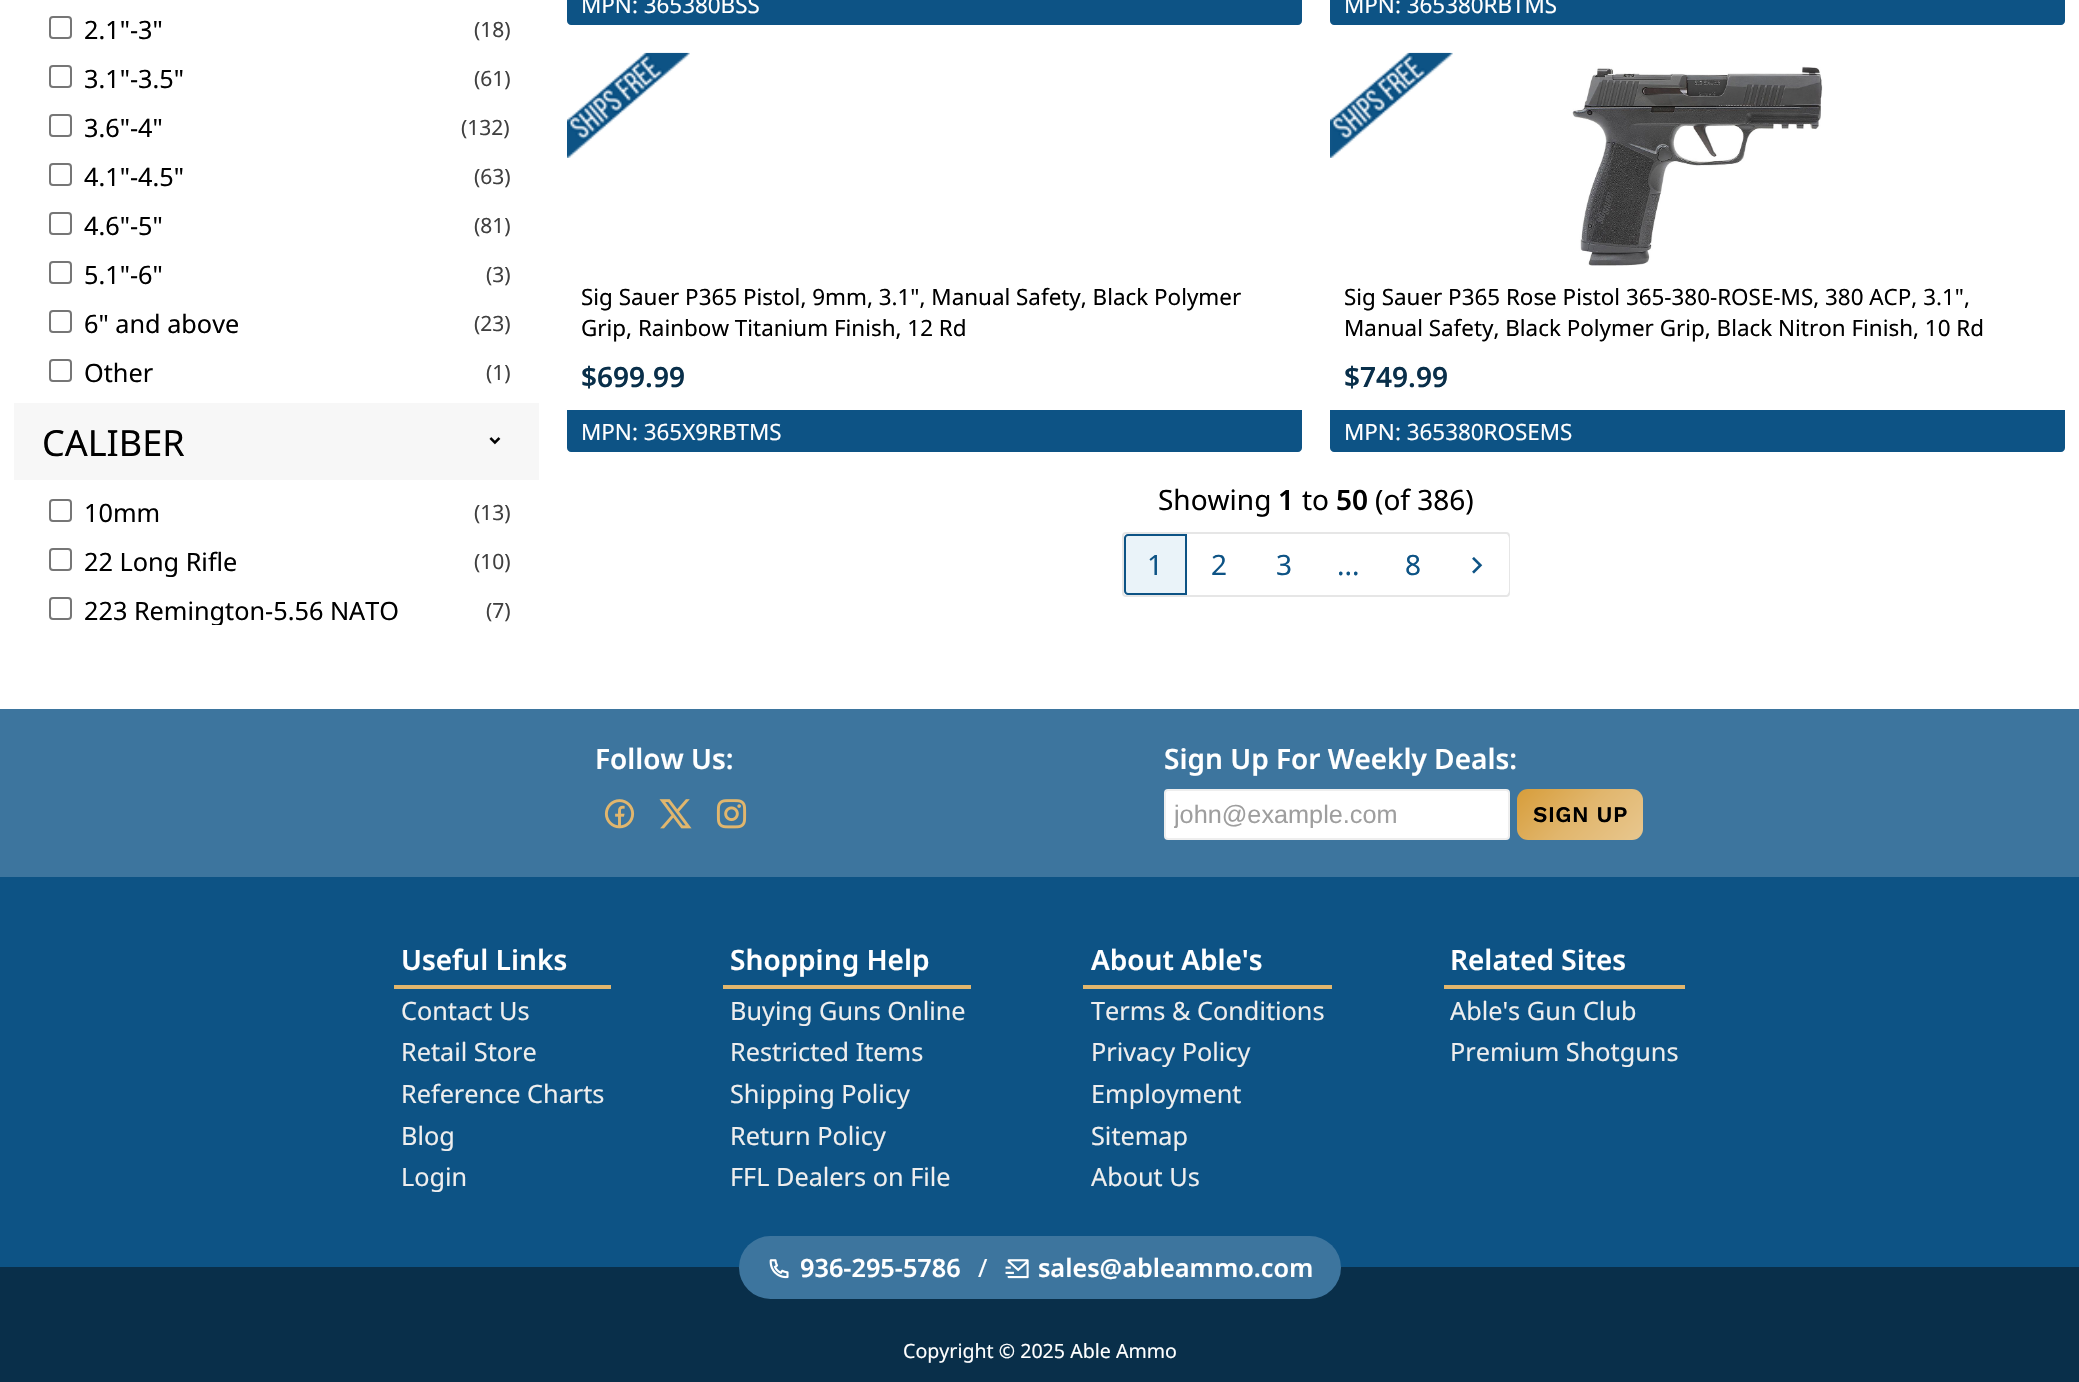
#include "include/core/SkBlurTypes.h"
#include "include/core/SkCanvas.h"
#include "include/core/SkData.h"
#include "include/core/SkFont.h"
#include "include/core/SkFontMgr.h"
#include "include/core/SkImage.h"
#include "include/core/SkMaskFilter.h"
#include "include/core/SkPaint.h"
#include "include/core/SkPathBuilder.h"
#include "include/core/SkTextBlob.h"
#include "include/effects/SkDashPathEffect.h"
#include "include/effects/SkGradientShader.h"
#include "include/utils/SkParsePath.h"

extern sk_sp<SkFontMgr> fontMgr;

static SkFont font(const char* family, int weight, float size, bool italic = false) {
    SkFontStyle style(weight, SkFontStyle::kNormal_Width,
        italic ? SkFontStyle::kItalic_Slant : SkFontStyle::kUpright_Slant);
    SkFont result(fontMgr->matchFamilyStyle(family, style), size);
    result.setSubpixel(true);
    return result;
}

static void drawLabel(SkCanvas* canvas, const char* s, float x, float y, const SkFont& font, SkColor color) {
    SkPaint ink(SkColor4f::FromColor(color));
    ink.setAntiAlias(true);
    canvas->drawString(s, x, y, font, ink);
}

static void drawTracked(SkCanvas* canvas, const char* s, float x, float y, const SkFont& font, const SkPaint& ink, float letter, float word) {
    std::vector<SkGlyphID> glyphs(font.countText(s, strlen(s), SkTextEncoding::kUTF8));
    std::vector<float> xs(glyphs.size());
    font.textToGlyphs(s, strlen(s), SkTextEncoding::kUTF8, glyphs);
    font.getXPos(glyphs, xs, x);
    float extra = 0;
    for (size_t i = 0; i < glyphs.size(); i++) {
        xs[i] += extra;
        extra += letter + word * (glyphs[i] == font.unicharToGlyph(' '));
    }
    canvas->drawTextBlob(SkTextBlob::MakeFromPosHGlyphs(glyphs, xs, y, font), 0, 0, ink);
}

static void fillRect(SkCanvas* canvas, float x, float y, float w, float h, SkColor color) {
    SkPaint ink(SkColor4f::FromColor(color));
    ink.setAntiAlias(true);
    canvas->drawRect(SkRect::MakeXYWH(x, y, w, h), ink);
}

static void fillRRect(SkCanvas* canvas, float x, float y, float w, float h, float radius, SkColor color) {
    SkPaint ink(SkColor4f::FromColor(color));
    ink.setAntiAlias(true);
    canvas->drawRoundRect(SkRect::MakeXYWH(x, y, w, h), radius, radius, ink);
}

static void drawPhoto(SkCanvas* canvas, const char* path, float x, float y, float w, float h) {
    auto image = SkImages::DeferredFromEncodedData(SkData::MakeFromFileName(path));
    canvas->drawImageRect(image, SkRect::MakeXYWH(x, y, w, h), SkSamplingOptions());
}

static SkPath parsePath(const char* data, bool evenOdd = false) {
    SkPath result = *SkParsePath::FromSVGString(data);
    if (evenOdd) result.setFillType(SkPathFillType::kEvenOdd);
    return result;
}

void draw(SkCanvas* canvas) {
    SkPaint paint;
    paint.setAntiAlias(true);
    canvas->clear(0xFFFFFFFF);
    paint.setStroke(true);
    paint.setStrokeWidth(2);
    paint.setColor(0xFF767676);
    canvas->drawRoundRect(SkRect::MakeXYWH(50, 17, 21, 21), 3, 3, paint);
    SkFont font1 = font("Noto Sans", 400, 25.25f);
    drawLabel(canvas, "2.1\"-3\"", 84, 39, font1, 0xFF000000);
    SkFont font2 = font("Noto Sans", 400, 21);
    drawLabel(canvas, "(18)", 474, 37, font2, 0xFF404040);
    canvas->drawRoundRect(SkRect::MakeXYWH(50, 66, 21, 21), 3, 3, paint);
    drawLabel(canvas, "3.1\"-3.5\"", 84, 88, font1, 0xFF000000);
    drawLabel(canvas, "(61)", 474, 86, font2, 0xFF404040);
    canvas->drawRoundRect(SkRect::MakeXYWH(50, 115, 21, 21), 3, 3, paint);
    drawLabel(canvas, "3.6\"-4\"", 84, 137, font1, 0xFF000000);
    drawLabel(canvas, "(132)", 461, 135, font2, 0xFF404040);
    canvas->drawRoundRect(SkRect::MakeXYWH(50, 164, 21, 21), 3, 3, paint);
    drawLabel(canvas, "4.1\"-4.5\"", 84, 186, font1, 0xFF000000);
    drawLabel(canvas, "(63)", 474, 184, font2, 0xFF404040);
    canvas->drawRoundRect(SkRect::MakeXYWH(50, 213, 21, 21), 3, 3, paint);
    drawLabel(canvas, "4.6\"-5\"", 84, 235, font1, 0xFF000000);
    drawLabel(canvas, "(81)", 474, 233, font2, 0xFF404040);
    canvas->drawRoundRect(SkRect::MakeXYWH(50, 262, 21, 21), 3, 3, paint);
    drawLabel(canvas, "5.1\"-6\"", 84, 284, font1, 0xFF000000);
    drawLabel(canvas, "(3)", 486, 282, font2, 0xFF404040);
    canvas->drawRoundRect(SkRect::MakeXYWH(50, 311, 21, 21), 3, 3, paint);
    drawLabel(canvas, "6\" and above", 84, 333, font1, 0xFF000000);
    drawLabel(canvas, "(23)", 474, 331, font2, 0xFF404040);
    canvas->drawRoundRect(SkRect::MakeXYWH(50, 360, 21, 21), 3, 3, paint);
    drawLabel(canvas, "Other", 84, 382, font1, 0xFF000000);
    drawLabel(canvas, "(1)", 486, 380, font2, 0xFF404040);
    fillRect(canvas, 14, 403, 525, 77, 0xFFF7F7F7);
    SkFont font3 = font("Noto Sans", 400, 36);
    drawLabel(canvas, "CALIBER", 42, 456, font3, 0xFF000000);
    drawPhoto(canvas, "assets/img1.png", 489, 437, 12, 8);
    canvas->drawRoundRect(SkRect::MakeXYWH(50, 500, 21, 21), 3, 3, paint);
    drawLabel(canvas, "10mm", 84, 522, font1, 0xFF000000);
    drawLabel(canvas, "(13)", 474, 520, font2, 0xFF404040);
    canvas->drawRoundRect(SkRect::MakeXYWH(50, 549, 21, 21), 3, 3, paint);
    drawLabel(canvas, "22 Long Rifle", 84, 571, font1, 0xFF000000);
    drawLabel(canvas, "(10)", 474, 569, font2, 0xFF404040);
    canvas->drawRoundRect(SkRect::MakeXYWH(50, 598, 21, 21), 3, 3, paint);
    canvas->save();
    canvas->clipPath(parsePath("M18-702H535C537-702 539-700 539-698V621C539 623 537 625 535 625H18C16 625 14 623 14 621V-698C14-700 16-702 18-702Z"), true);
    drawLabel(canvas, "223 Remington-5.56 NATO", 84, 620, font1, 0xFF000000);
    canvas->restore();
    drawLabel(canvas, "(7)", 486, 618, font2, 0xFF404040);
    paint.setStroke(false);
    paint.setColor(0xFF0D5385);
    canvas->drawPath(parsePath("M567-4H1302V21C1302 23 1300 25 1298 25H571C569 25 567 23 567 21Z"), paint);
    SkFont font4 = font("Noto Sans", 400, 22.4f);
    drawLabel(canvas, "MPN: 365380BSS", 581, 13, font4, 0xFFFFFFFF);
    canvas->drawPath(parsePath("M1330-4H2065V21C2065 23 2063 25 2061 25H1334C1332 25 1330 23 1330 21Z"), paint);
    drawLabel(canvas, "MPN: 365380RBTMS", 1344, 13, font4, 0xFFFFFFFF);
    drawPhoto(canvas, "assets/img2.png", 567, 52, 123, 106);
    drawLabel(canvas, "Sig Sauer P365 Pistol, 9mm, 3.1\", Manual Safety, Black Polymer", 581, 305, font4, 0xFF000000);
    drawLabel(canvas, "Grip, Rainbow Titanium Finish, 12 Rd", 581, 336, font4, 0xFF000000);
    SkFont font5 = font("Noto Sans", 600, 28);
    drawLabel(canvas, "$699.99", 581, 387, font5, 0xFF092F4A);
    canvas->drawPath(parsePath("M567 410H1302V448C1302 450 1300 452 1298 452H571C569 452 567 450 567 448Z"), paint);
    drawLabel(canvas, "MPN: 365X9RBTMS", 581, 440, font4, 0xFFFFFFFF);
    drawPhoto(canvas, "assets/img2.png", 1330, 52, 123, 106);
    drawPhoto(canvas, "assets/img3.png", 1572, 66, 251, 200);
    drawLabel(canvas, "Sig Sauer P365 Rose Pistol 365-380-ROSE-MS, 380 ACP, 3.1\",", 1344, 305, font4, 0xFF000000);
    drawLabel(canvas, "Manual Safety, Black Polymer Grip, Black Nitron Finish, 10 Rd", 1344, 336, font4, 0xFF000000);
    drawLabel(canvas, "$749.99", 1344, 387, font5, 0xFF092F4A);
    canvas->drawPath(parsePath("M1330 410H2065V448C2065 450 2063 452 2061 452H1334C1332 452 1330 450 1330 448Z"), paint);
    drawLabel(canvas, "MPN: 365380ROSEMS", 1344, 440, font4, 0xFFFFFFFF);
    SkFont font6 = font("Noto Sans", 400, 28);
    drawLabel(canvas, "Showing", 1158, 510, font6, 0xFF000000);
    drawLabel(canvas, "1", 1278, 510, font5, 0xFF000000);
    drawLabel(canvas, "to", 1302, 510, font6, 0xFF000000);
    drawLabel(canvas, "50", 1336, 510, font5, 0xFF000000);
    drawLabel(canvas, "(of 386)", 1375, 510, font6, 0xFF000000);
    paint.setStroke(true);
    paint.setColor(0xFFE6E6E6);
    canvas->drawRoundRect(SkRect::MakeXYWH(1123, 533, 386, 63), 3, 3, paint);
    paint.setStroke(false);
    paint.setColor(0xFFEAF3F9);
    canvas->drawPath(parsePath("M1128 535H1186V594H1128C1126.5 594 1125 592.5 1125 591V538C1125 536.5 1126.5 535 1128 535Z"), paint);
    paint.setStroke(true);
    paint.setColor(0xFF0D5385);
    canvas->drawPath(parsePath("M1128 535H1186V594H1128C1126.5 594 1125 592.5 1125 591V538C1125 536.5 1126.5 535 1128 535Z"), paint);
    drawLabel(canvas, "1", 1147, 575, font6, 0xFF0D5385);
    drawLabel(canvas, "2", 1211, 575, font6, 0xFF0D5385);
    drawLabel(canvas, "3", 1276, 575, font6, 0xFF0D5385);
    drawLabel(canvas, "...", 1337, 575, font6, 0xFF0D5385);
    drawLabel(canvas, "8", 1405, 575, font6, 0xFF0D5385);
    paint.setStroke(false);
    paint.setColor(0xFFFFFFFF);
    canvas->drawPath(parsePath("M1446 534H1505C1507 534 1509 536 1509 538V591C1509 593 1507 595 1505 595H1446Z"), paint);
    drawPhoto(canvas, "assets/img4.png", 1472, 557, 11, 17);
    fillRect(canvas, 0, 877, 2079, 390, 0xFF0D5385);
    fillRect(canvas, 0, 709, 2079, 168, 0xFF3D759E);
    drawLabel(canvas, "Follow Us:", 595, 769, font5, 0xFFFFFFFF);
    drawPhoto(canvas, "assets/img5.png", 604, 799, 31, 30);
    drawPhoto(canvas, "assets/img6.png", 659, 799, 33, 30);
    drawPhoto(canvas, "assets/img7.png", 716, 799, 31, 30);
    drawLabel(canvas, "Sign Up For Weekly Deals:", 1164, 769, font5, 0xFFFFFFFF);
    canvas->drawRoundRect(SkRect::MakeXYWH(1165, 790, 344, 49), 3, 3, paint);
    paint.setStroke(true);
    paint.setColor(0xFFEEEEEE);
    canvas->drawRoundRect(SkRect::MakeXYWH(1165, 790, 344, 49), 3, 3, paint);
    canvas->save();
    canvas->clipRect(SkRect::MakeXYWH(1174, 800, 326, 28));
    SkFont font7 = font("Liberation Sans", 400, 25.25f);
    drawLabel(canvas, "john@example.com", 1174, 823, font7, 0xFF9E9E9E);
    canvas->restore();
    paint.setStroke(false);
    {
        const SkColor colors[] = {0xFFD79D3A, 0xFFE1B66D, 0xFFE8C78F};
        const float stops[] = {0, 0.5f, 1};
        const SkPoint ends[] = {{1536, 770}, {1624, 859}};
        paint.setShader(SkGradientShader::MakeLinear(ends, colors, stops, 3, SkTileMode::kClamp));
        paint.setAlpha(255);
    }
    canvas->drawRoundRect(SkRect::MakeXYWH(1517, 789, 126, 51), 11, 11, paint);
    SkFont font8 = font("Work Sans", 600, 22.4f);
    paint.setShader(nullptr);
    paint.setColor(0xFF000000);
    drawTracked(canvas, "SIGN UP", 1533, 822, font8, paint, 0.5f, 0);
    fillRect(canvas, 394, 985, 217, 4, 0xFFE1B66D);
    drawLabel(canvas, "Useful Links", 401, 970, font5, 0xFFFFFFFF);
    drawLabel(canvas, "Contact Us", 401, 1020, font1, 0xFFEEEEEE);
    drawLabel(canvas, "Retail Store", 401, 1061, font1, 0xFFEEEEEE);
    drawLabel(canvas, "Reference Charts", 401, 1103, font1, 0xFFEEEEEE);
    drawLabel(canvas, "Blog", 401, 1145, font1, 0xFFEEEEEE);
    drawLabel(canvas, "Login", 401, 1186, font1, 0xFFEEEEEE);
    fillRect(canvas, 723, 985, 248, 4, 0xFFE1B66D);
    drawLabel(canvas, "Shopping Help", 730, 970, font5, 0xFFFFFFFF);
    drawLabel(canvas, "Buying Guns Online", 730, 1020, font1, 0xFFEEEEEE);
    drawLabel(canvas, "Restricted Items", 730, 1061, font1, 0xFFEEEEEE);
    drawLabel(canvas, "Shipping Policy", 730, 1103, font1, 0xFFEEEEEE);
    drawLabel(canvas, "Return Policy", 730, 1145, font1, 0xFFEEEEEE);
    drawLabel(canvas, "FFL Dealers on File", 730, 1186, font1, 0xFFEEEEEE);
    fillRect(canvas, 1083, 985, 249, 4, 0xFFE1B66D);
    drawLabel(canvas, "About Able's", 1091, 970, font5, 0xFFFFFFFF);
    drawLabel(canvas, "Terms & Conditions", 1091, 1020, font1, 0xFFEEEEEE);
    drawLabel(canvas, "Privacy Policy", 1091, 1061, font1, 0xFFEEEEEE);
    drawLabel(canvas, "Employment", 1091, 1103, font1, 0xFFEEEEEE);
    drawLabel(canvas, "Sitemap", 1091, 1145, font1, 0xFFEEEEEE);
    drawLabel(canvas, "About Us", 1091, 1186, font1, 0xFFEEEEEE);
    fillRect(canvas, 1444, 985, 241, 4, 0xFFE1B66D);
    drawLabel(canvas, "Related Sites", 1450, 970, font5, 0xFFFFFFFF);
    drawLabel(canvas, "Able's Gun Club", 1450, 1020, font1, 0xFFEEEEEE);
    drawLabel(canvas, "Premium Shotguns", 1450, 1061, font1, 0xFFEEEEEE);
    fillRect(canvas, 0, 1267, 2079, 115, 0xFF092F4A);
    fillRRect(canvas, 739, 1236, 602, 63, 31.5f, 0xFF3D759E);
    drawPhoto(canvas, "assets/img8.png", 769, 1259, 20, 20);
    SkFont font9 = font("Noto Sans", 600, 25.25f);
    drawLabel(canvas, "936-295-5786", 800, 1277, font9, 0xFFFFFFFF);
    drawLabel(canvas, "/", 978, 1277, font1, 0xFFFFFFFF);
    drawPhoto(canvas, "assets/img9.png", 1005, 1259, 24, 20);
    drawLabel(canvas, "sales@ableammo.com", 1038, 1277, font9, 0xFFFFFFFF);
    SkFont font10 = font("Noto Sans", 400, 19.6f);
    drawLabel(canvas, "Copyright © 2025 Able Ammo", 903, 1358, font10, 0xFFFFFFFF);
}
